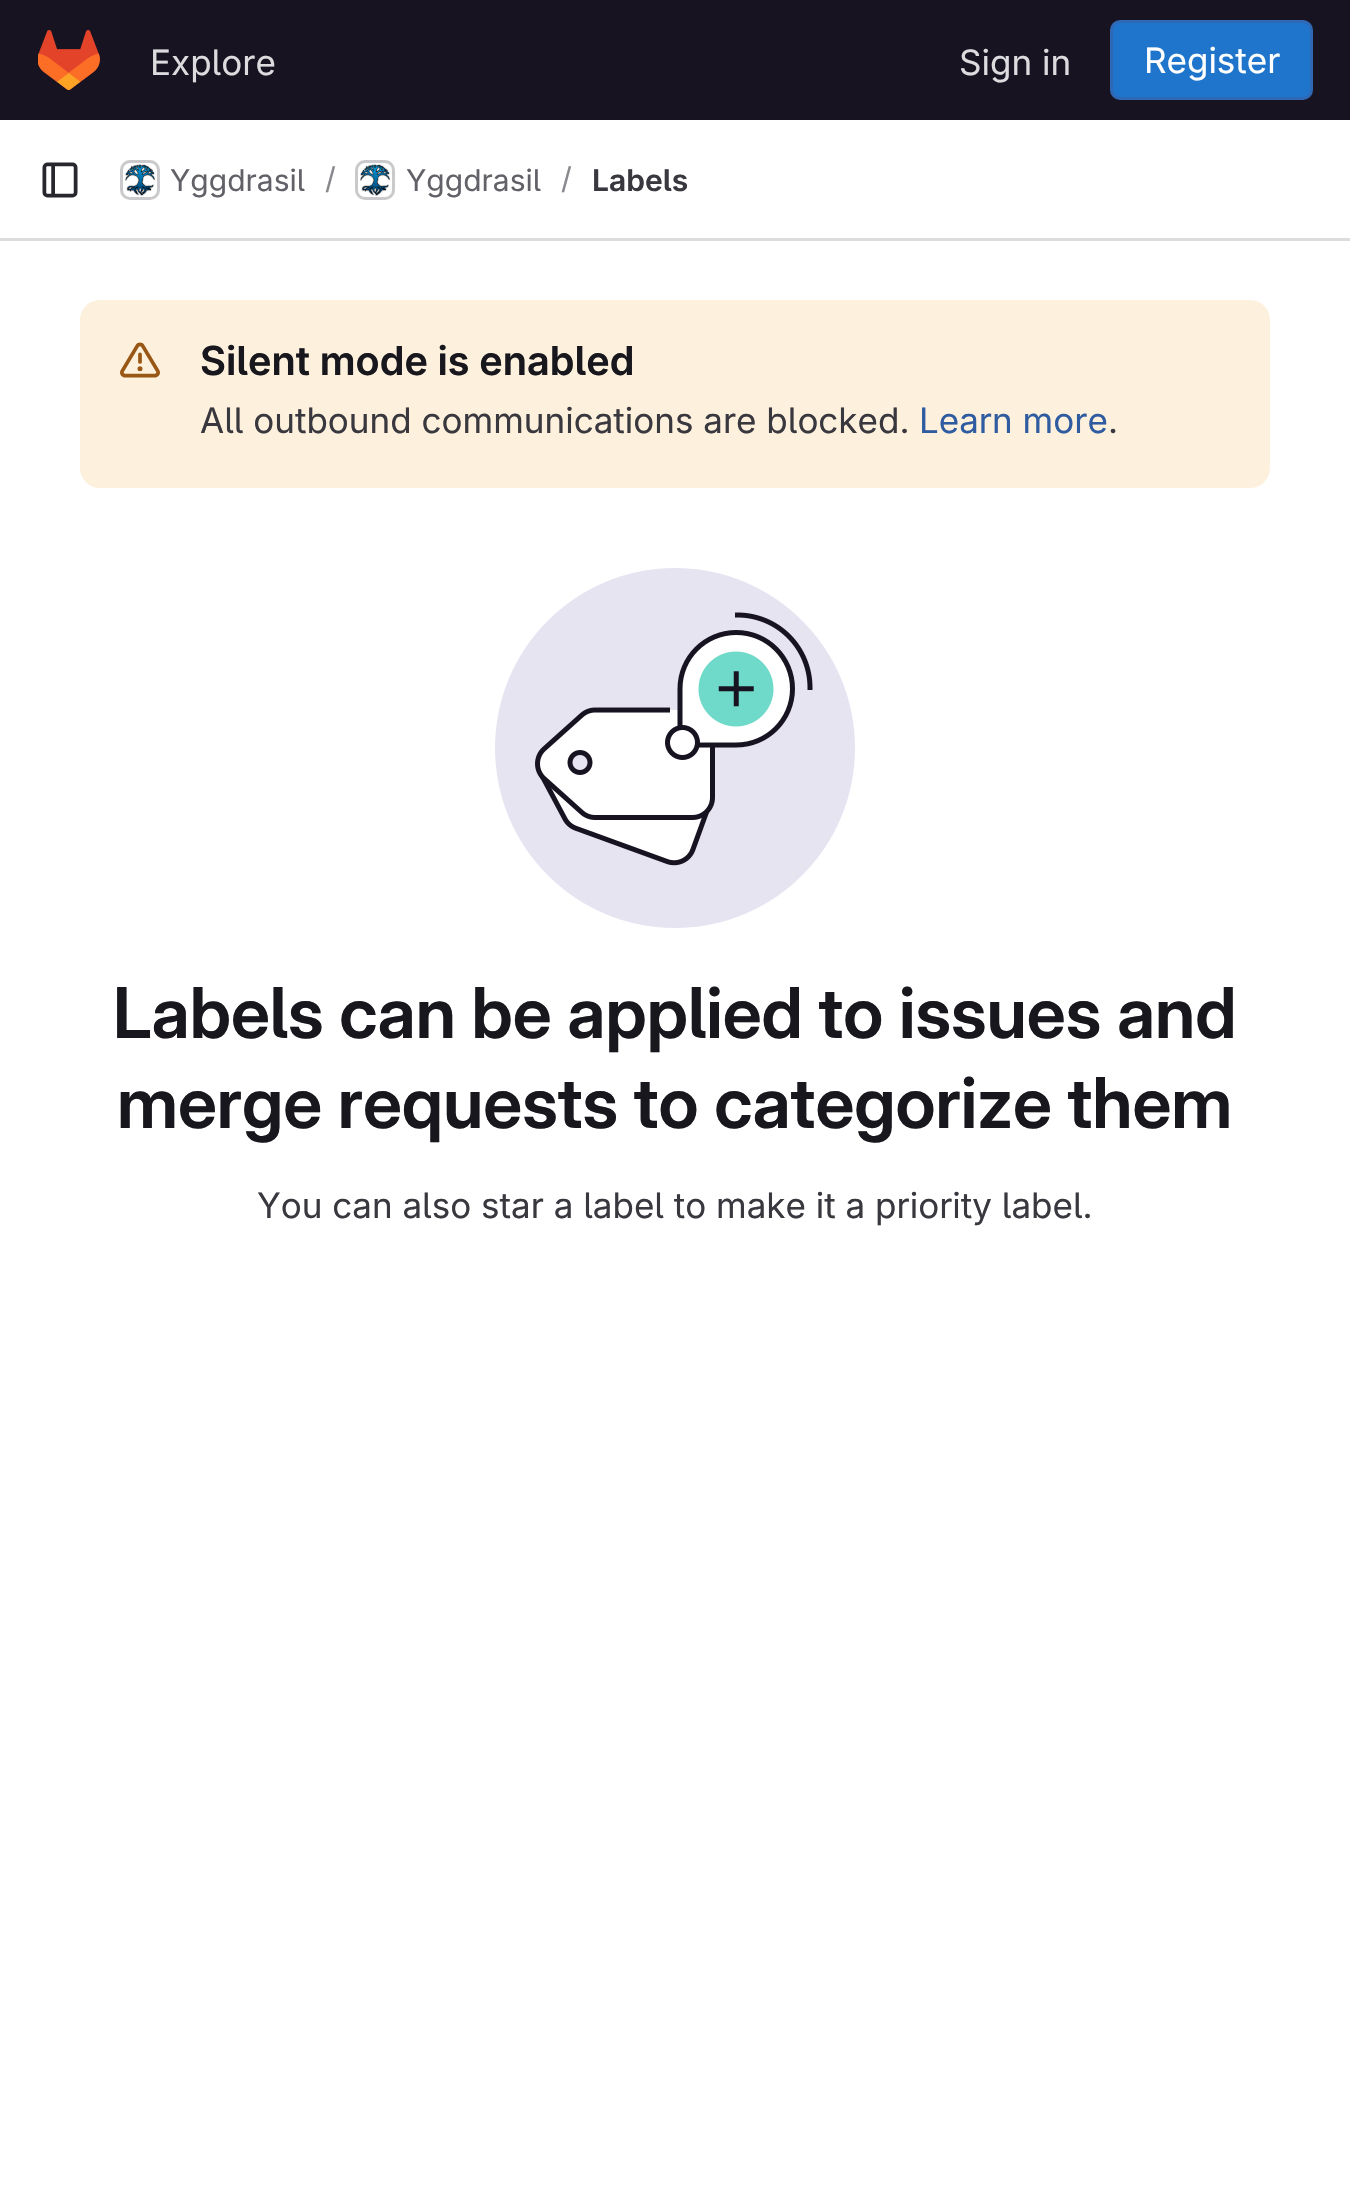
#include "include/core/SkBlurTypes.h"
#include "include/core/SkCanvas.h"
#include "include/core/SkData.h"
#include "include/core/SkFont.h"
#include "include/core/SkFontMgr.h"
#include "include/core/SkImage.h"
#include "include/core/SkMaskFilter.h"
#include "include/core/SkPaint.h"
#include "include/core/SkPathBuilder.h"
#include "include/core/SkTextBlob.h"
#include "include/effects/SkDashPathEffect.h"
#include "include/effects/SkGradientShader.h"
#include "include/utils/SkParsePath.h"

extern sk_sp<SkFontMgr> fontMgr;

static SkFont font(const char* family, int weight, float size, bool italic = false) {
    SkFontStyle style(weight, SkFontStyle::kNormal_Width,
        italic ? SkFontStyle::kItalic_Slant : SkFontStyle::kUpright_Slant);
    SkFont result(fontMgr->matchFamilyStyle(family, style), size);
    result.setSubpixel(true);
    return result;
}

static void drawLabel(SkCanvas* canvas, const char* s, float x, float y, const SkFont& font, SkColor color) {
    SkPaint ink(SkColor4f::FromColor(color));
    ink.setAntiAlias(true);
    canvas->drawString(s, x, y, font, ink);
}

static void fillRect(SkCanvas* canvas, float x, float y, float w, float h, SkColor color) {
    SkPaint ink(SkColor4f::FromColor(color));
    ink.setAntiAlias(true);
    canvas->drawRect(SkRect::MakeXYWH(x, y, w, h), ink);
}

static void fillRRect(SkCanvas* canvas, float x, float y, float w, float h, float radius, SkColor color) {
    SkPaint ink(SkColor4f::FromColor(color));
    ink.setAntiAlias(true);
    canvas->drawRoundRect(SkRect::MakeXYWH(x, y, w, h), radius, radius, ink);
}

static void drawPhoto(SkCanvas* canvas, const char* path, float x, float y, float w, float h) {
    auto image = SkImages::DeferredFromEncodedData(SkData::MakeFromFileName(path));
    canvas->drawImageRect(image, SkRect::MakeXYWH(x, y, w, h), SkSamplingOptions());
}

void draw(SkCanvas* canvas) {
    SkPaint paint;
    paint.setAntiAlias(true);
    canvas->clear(0xFFFFFFFF);
    fillRect(canvas, 0, 0, 1350, 120, 0xFF171321);
    drawPhoto(canvas, "assets/img1.png", 38, 30, 62, 60);
    SkFont font1 = font("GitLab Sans", 400, 35);
    drawLabel(canvas, "Explore", 150, 75, font1, 0xFFDCDCDE);
    drawLabel(canvas, "Sign in", 959, 75, font1, 0xFFDCDCDE);
    paint.setColor(0xFF1F75CB);
    canvas->drawRoundRect(SkRect::MakeXYWH(1111.5f, 21.5f, 200, 77), 8.5f, 8.5f, paint);
    paint.setStroke(true);
    paint.setStrokeWidth(3);
    paint.setColor(0xFF2F68B4);
    canvas->drawRoundRect(SkRect::MakeXYWH(1111.5f, 21.5f, 200, 77), 8.5f, 8.5f, paint);
    drawLabel(canvas, "Register", 1144, 73, font1, 0xFFFFFFFF);
    fillRect(canvas, 0, 238, 1350, 3, 0xFFDCDCDE);
    drawPhoto(canvas, "assets/img2.png", 42, 162, 36, 36);
    paint.setColor(0xFFDCDCDE);
    canvas->drawRoundRect(SkRect::MakeXYWH(121.5f, 161.5f, 37, 37), 8.5f, 8.5f, paint);
    drawPhoto(canvas, "assets/img3.png", 125, 164, 31, 32);
    paint.setColor(0x14050506);
    canvas->drawRoundRect(SkRect::MakeXYWH(121.5f, 161.5f, 37, 37), 8.5f, 8.5f, paint);
    SkFont font2 = font("GitLab Sans", 400, 30);
    drawLabel(canvas, "Yggdrasil", 170, 191, font2, 0xFF626168);
    drawLabel(canvas, "/", 325, 189, font2, 0xFF89888D);
    paint.setColor(0xFFDCDCDE);
    canvas->drawRoundRect(SkRect::MakeXYWH(356.5f, 161.5f, 37, 37), 8.5f, 8.5f, paint);
    drawPhoto(canvas, "assets/img3.png", 360, 164, 31, 32);
    paint.setColor(0x14050506);
    canvas->drawRoundRect(SkRect::MakeXYWH(356.5f, 161.5f, 37, 37), 8.5f, 8.5f, paint);
    drawLabel(canvas, "Yggdrasil", 406, 191, font2, 0xFF626168);
    drawLabel(canvas, "/", 561, 189, font2, 0xFF89888D);
    SkFont font3 = font("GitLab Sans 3", 600, 30);
    drawLabel(canvas, "Labels", 592, 191, font3, 0xFF3A383F);
    fillRRect(canvas, 80, 300, 1190, 188, 20, 0xFFFDF1DD);
    drawPhoto(canvas, "assets/img4.png", 120, 342, 40, 36);
    SkFont font4 = font("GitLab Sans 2", 600, 40);
    drawLabel(canvas, "Silent mode is enabled", 200, 375, font4, 0xFF18171D);
    drawLabel(canvas, "All outbound communications are blocked.", 200, 433, font1, 0xFF3A383F);
    drawLabel(canvas, "Learn more", 919, 433, font1, 0xFF2F5CA0);
    drawLabel(canvas, ".", 1108, 433, font1, 0xFF3A383F);
    drawPhoto(canvas, "assets/img5.png", 495, 568, 360, 360);
    SkFont font5 = font("GitLab Sans", 600, 70);
    drawLabel(canvas, "Labels can be applied to issues and", 113, 1038, font5, 0xFF18171D);
    drawLabel(canvas, "merge requests to categorize them", 117, 1128, font5, 0xFF18171D);
    drawLabel(canvas, "You can also star a label to make it a priority label.", 257, 1218, font1, 0xFF3A383F);
}
